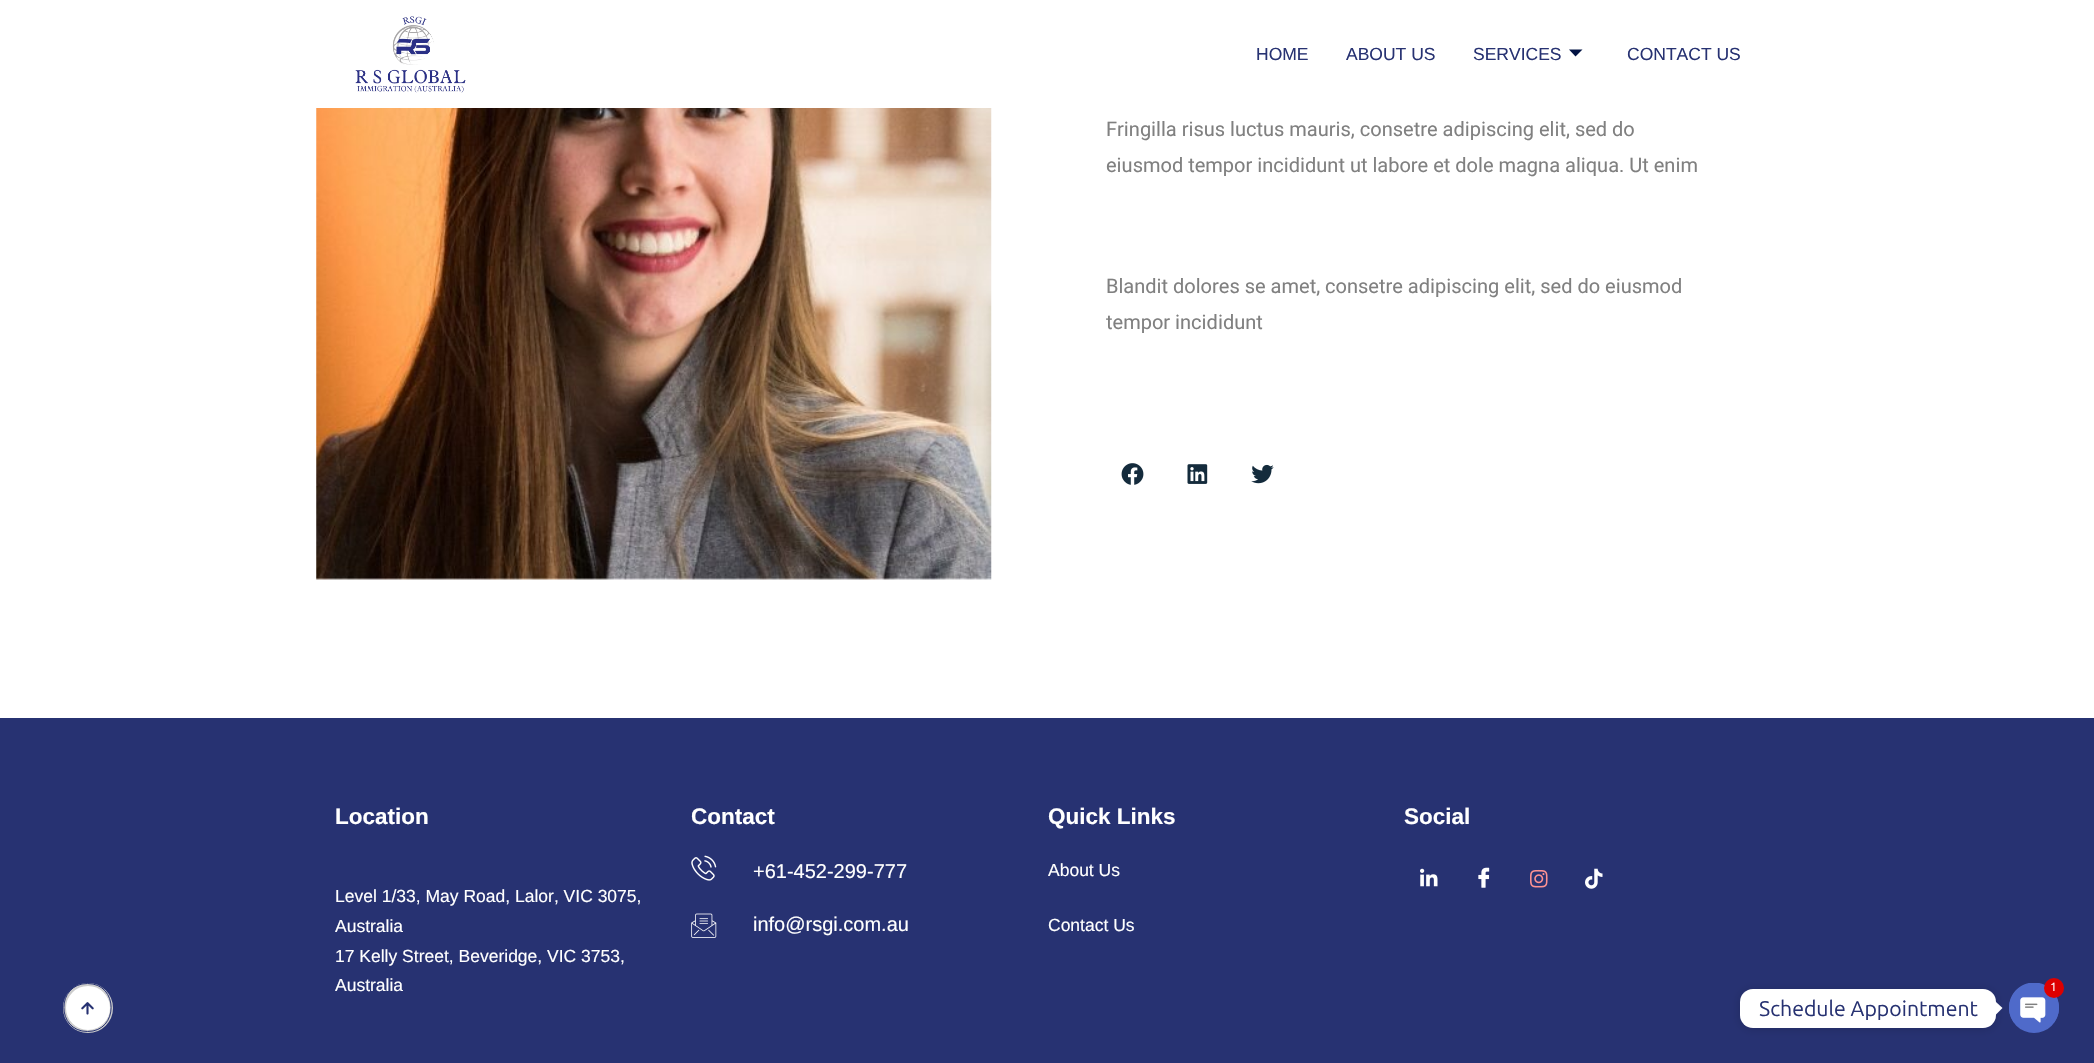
#include "include/core/SkBlurTypes.h"
#include "include/core/SkCanvas.h"
#include "include/core/SkData.h"
#include "include/core/SkFont.h"
#include "include/core/SkFontMgr.h"
#include "include/core/SkImage.h"
#include "include/core/SkMaskFilter.h"
#include "include/core/SkPaint.h"
#include "include/core/SkPathBuilder.h"
#include "include/core/SkTextBlob.h"
#include "include/effects/SkDashPathEffect.h"
#include "include/effects/SkGradientShader.h"
#include "include/utils/SkParsePath.h"

extern sk_sp<SkFontMgr> fontMgr;

static SkFont font(const char* family, int weight, float size, bool italic = false) {
    SkFontStyle style(weight, SkFontStyle::kNormal_Width,
        italic ? SkFontStyle::kItalic_Slant : SkFontStyle::kUpright_Slant);
    SkFont result(fontMgr->matchFamilyStyle(family, style), size);
    result.setSubpixel(true);
    return result;
}

static void drawLabel(SkCanvas* canvas, const char* s, float x, float y, const SkFont& font, SkColor color) {
    SkPaint ink(SkColor4f::FromColor(color));
    ink.setAntiAlias(true);
    canvas->drawString(s, x, y, font, ink);
}

static void fillRect(SkCanvas* canvas, float x, float y, float w, float h, SkColor color) {
    SkPaint ink(SkColor4f::FromColor(color));
    ink.setAntiAlias(true);
    canvas->drawRect(SkRect::MakeXYWH(x, y, w, h), ink);
}

static void fillRRect(SkCanvas* canvas, float x, float y, float w, float h, float radius, SkColor color) {
    SkPaint ink(SkColor4f::FromColor(color));
    ink.setAntiAlias(true);
    canvas->drawRoundRect(SkRect::MakeXYWH(x, y, w, h), radius, radius, ink);
}

static void drawPhoto(SkCanvas* canvas, const char* path, float x, float y, float w, float h) {
    auto image = SkImages::DeferredFromEncodedData(SkData::MakeFromFileName(path));
    canvas->drawImageRect(image, SkRect::MakeXYWH(x, y, w, h), SkSamplingOptions());
}

static SkPath parsePath(const char* data, bool evenOdd = false) {
    SkPath result = *SkParsePath::FromSVGString(data);
    if (evenOdd) result.setFillType(SkPathFillType::kEvenOdd);
    return result;
}

void draw(SkCanvas* canvas) {
    SkPaint paint;
    paint.setAntiAlias(true);
    canvas->clear(0xFFFFFFFF);
    drawPhoto(canvas, "assets/img1.png", 355, 16, 111, 77);
    SkFont font1 = font("Liberation Sans", 400, 17.5f);
    drawLabel(canvas, "HOME", 1256, 60, font1, 0xFF273272);
    drawLabel(canvas, "ABOUT US", 1346, 60, font1, 0xFF273272);
    drawLabel(canvas, "SERVICES", 1473, 60, font1, 0xFF273272);
    paint.setColor(0xFF021343);
    canvas->drawPath(parsePath("M1569 49.5H1582.5L1575.5 56.5Z"), paint);
    drawLabel(canvas, "CONTACT US", 1627, 60, font1, 0xFF273272);
    drawPhoto(canvas, "assets/img2.png", 316, 108, 676, 472);
    SkFont font2 = font("Heebo", 400, 20);
    drawLabel(canvas, "Fringilla risus luctus mauris, consetre adipiscing elit, sed do", 1106, 136, font2, 0xFF808080);
    drawLabel(canvas, "eiusmod tempor incididunt ut labore et dole magna aliqua. Ut enim", 1106, 172, font2, 0xFF808080);
    drawLabel(canvas, "Blandit dolores se amet, consetre adipiscing elit, sed do eiusmod", 1106, 293, font2, 0xFF808080);
    drawLabel(canvas, "tempor incididunt", 1106, 329, font2, 0xFF808080);
    drawPhoto(canvas, "assets/img3.png", 1121, 463, 23, 22);
    drawPhoto(canvas, "assets/img4.png", 1187, 464, 21, 20);
    drawPhoto(canvas, "assets/img5.png", 1251, 464, 23, 20);
    fillRect(canvas, 0, 718, 2094, 345, 0xFF273272);
    SkFont font3 = font("Liberation Sans", 700, 22.5f);
    drawLabel(canvas, "Location", 335, 824, font3, 0xFFFFFFFF);
    drawLabel(canvas, "Level 1/33, May Road, Lalor, VIC 3075,", 335, 902, font1, 0xFFFFFFFF);
    drawLabel(canvas, "Australia", 335, 932, font1, 0xFFFFFFFF);
    drawLabel(canvas, "17 Kelly Street, Beveridge, VIC 3753,", 335, 962, font1, 0xFFFFFFFF);
    drawLabel(canvas, "Australia", 335, 991, font1, 0xFFFFFFFF);
    drawLabel(canvas, "Contact", 691, 824, font3, 0xFFFFFFFF);
    drawPhoto(canvas, "assets/img6.png", 691, 855, 26, 26);
    SkFont font4 = font("Liberation Sans", 400, 20);
    drawLabel(canvas, "+61-452-299-777", 753, 878, font4, 0xFFFFFFFF);
    drawPhoto(canvas, "assets/img7.png", 691, 913, 26, 25);
    drawLabel(canvas, "info@rsgi.com.au", 753, 931, font4, 0xFFFFFFFF);
    drawLabel(canvas, "Quick Links", 1048, 824, font3, 0xFFFFFFFF);
    drawLabel(canvas, "About Us", 1048, 876, font1, 0xFFFFFFFF);
    drawLabel(canvas, "Contact Us", 1048, 931, font1, 0xFFFFFFFF);
    drawLabel(canvas, "Social", 1404, 824, font3, 0xFFFFFFFF);
    drawPhoto(canvas, "assets/img8.png", 1420, 868, 18, 19);
    drawPhoto(canvas, "assets/img9.png", 1478, 867, 12, 21);
    drawPhoto(canvas, "assets/img10.png", 1530, 869, 18, 19);
    drawPhoto(canvas, "assets/img11.png", 1585, 868, 18, 21);
    paint.setColor(0xFFFFFFFF);
    canvas->drawCircle(88, 1008, 23.5f, paint);
    paint.setStroke(true);
    paint.setStrokeWidth(3);
    paint.setColor(0xFFCCCCCC);
    canvas->drawCircle(88, 1008, 23.5f, paint);
    paint.setStrokeWidth(1);
    paint.setColor(0xFF273272);
    canvas->drawPath(parsePath("M87.5 983.5C119 983.5 119 1031.5 87.5 1031.5C56 1031.5 56 983.5 87.5 983.5"), paint);
    drawPhoto(canvas, "assets/img12.png", 81, 1002, 13, 13);
    paint.setStroke(false);
    paint.setColor(0x26000000);
    paint.setMaskFilter(SkMaskFilter::MakeBlur(kNormal_SkBlurStyle, 5));
    canvas->drawRoundRect(SkRect::MakeXYWH(1740, 990, 256, 39), 13, 13, paint);
    paint.setMaskFilter(nullptr);
    paint.setColor(0xFF4F6ACA);
    canvas->drawCircle(2034, 1008, 25, paint);
    drawPhoto(canvas, "assets/img13.png", 2009, 983, 50, 40);
    paint.setColor(0xFFDD0000);
    canvas->drawCircle(2054, 988, 10, paint);
    SkFont font5 = font("Ubuntu", 400, 12);
    drawLabel(canvas, "1", 2050, 991, font5, 0xFFFFFFFF);
    fillRRect(canvas, 1740, 989, 256, 39, 13, 0xFFFFFFFF);
    SkFont font6 = font("Ubuntu", 400, 21.25f);
    drawLabel(canvas, "Schedule Appointment", 1759, 1016, font6, 0xFF273272);
    paint.setColor(0xFFFFFFFF);
    canvas->drawPath(parsePath("M1996 1014.5V1002L2002.5 1008Z"), paint);
}
